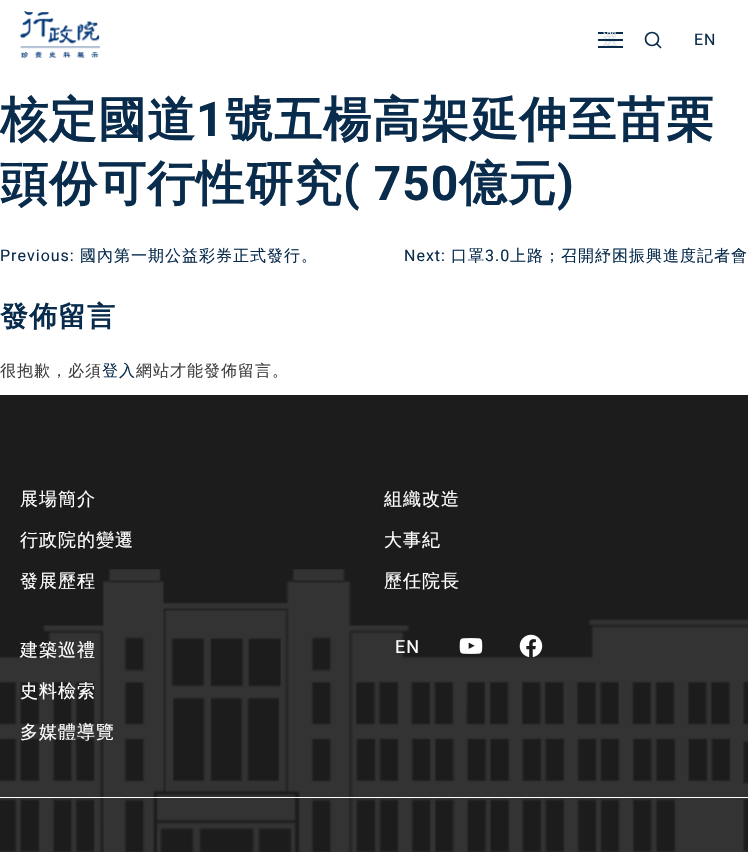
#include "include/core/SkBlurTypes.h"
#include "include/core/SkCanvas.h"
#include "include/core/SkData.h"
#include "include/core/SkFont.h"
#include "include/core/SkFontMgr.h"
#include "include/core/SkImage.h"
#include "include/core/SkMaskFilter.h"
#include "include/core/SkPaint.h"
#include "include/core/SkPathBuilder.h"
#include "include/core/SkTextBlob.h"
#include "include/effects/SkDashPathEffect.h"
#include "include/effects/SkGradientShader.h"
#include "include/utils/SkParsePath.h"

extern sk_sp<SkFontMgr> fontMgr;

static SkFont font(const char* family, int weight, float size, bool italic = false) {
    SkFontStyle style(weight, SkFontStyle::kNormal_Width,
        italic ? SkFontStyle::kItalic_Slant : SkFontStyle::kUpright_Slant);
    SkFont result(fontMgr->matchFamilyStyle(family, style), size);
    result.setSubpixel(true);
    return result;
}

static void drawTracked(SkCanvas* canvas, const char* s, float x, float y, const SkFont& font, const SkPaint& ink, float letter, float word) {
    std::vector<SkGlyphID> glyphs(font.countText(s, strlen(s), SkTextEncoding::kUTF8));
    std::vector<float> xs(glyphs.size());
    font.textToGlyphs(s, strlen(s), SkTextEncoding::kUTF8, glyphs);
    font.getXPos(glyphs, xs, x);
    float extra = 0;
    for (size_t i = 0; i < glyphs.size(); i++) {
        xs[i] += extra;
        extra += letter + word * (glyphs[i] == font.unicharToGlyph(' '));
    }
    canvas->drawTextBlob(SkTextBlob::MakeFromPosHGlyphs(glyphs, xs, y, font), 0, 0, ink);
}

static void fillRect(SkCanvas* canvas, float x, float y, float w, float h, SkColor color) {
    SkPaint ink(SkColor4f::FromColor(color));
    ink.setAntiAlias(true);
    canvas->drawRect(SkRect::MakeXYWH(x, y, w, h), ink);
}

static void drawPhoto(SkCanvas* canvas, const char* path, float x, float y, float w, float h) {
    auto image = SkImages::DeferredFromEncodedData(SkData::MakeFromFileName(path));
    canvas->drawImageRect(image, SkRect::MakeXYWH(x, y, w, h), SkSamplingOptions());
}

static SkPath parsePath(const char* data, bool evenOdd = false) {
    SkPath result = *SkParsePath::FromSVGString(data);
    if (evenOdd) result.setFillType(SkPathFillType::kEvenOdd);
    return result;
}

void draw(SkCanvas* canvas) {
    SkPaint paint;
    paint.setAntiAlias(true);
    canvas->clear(0xFFFFFFFF);
    drawPhoto(canvas, "assets/img1.png", 20, 11, 80, 47);
    fillRect(canvas, 598, 32, 25, 2, 0xFF092C4C);
    SkFont font1 = font("WenQuanYi Zen Hei", 500, 16);
    paint.setColor(0xFFDADFE4);
    drawTracked(canvas, "選", 602, 45, font1, paint, 1, 0);
    fillRect(canvas, 598, 39, 25, 2, 0xFF092C4C);
    fillRect(canvas, 598, 46, 25, 2, 0xFF092C4C);
    paint.setStroke(true);
    paint.setStrokeWidth(1.7f);
    paint.setColor(0xFF092C4C);
    canvas->drawCircle(652, 39, 6.5f, paint);
    paint.setStrokeCap(SkPaint::kRound_Cap);
    paint.setStrokeJoin(SkPaint::kRound_Join);
    canvas->drawPath(parsePath("M660.5 47.5L657 44"), paint);
    SkFont font2 = font("Roboto", 400, 16);
    paint.setStroke(false);
    drawTracked(canvas, "EN", 694, 45, font2, paint, 1, 0);
    SkFont font3 = font("WenQuanYi Zen Hei", 700, 48);
    drawTracked(canvas, "核定國道", 0, 136, font3, paint, 1, 0);
    SkFont font4 = font("Roboto", 700, 48);
    drawTracked(canvas, "1", 196, 136, font4, paint, 1, 0);
    drawTracked(canvas, "號五楊高架延伸至苗栗", 225, 136, font3, paint, 1, 0);
    drawTracked(canvas, "頭份可行性研究", 0, 200, font3, paint, 1, 0);
    drawTracked(canvas, "( 750", 343, 200, font4, paint, 1, 0);
    drawTracked(canvas, "億元", 459, 200, font3, paint, 1, 0);
    drawTracked(canvas, ")", 557, 200, font4, paint, 1, 0);
    drawTracked(canvas, "Previous:", 0, 261, font2, paint, 1, 0);
    drawTracked(canvas, "國內第一期公益彩券正式發行。", 80, 261, font1, paint, 1, 0);
    drawTracked(canvas, "Next:", 404, 261, font2, paint, 1, 0);
    drawTracked(canvas, "口罩", 451, 261, font1, paint, 1, 0);
    drawTracked(canvas, "3.0", 485, 261, font2, paint, 1, 0);
    drawTracked(canvas, "上路；召開紓困振興進度記者會", 510, 261, font1, paint, 1, 0);
    SkFont font5 = font("WenQuanYi Zen Hei", 700, 28);
    drawTracked(canvas, "發佈留言", 0, 326, font5, paint, 1, 0);
    paint.setColor(0xFF404040);
    drawTracked(canvas, "很抱歉，必須", 0, 376, font1, paint, 1, 0);
    paint.setColor(0xFF092C4C);
    drawTracked(canvas, "登入", 102, 376, font1, paint, 1, 0);
    paint.setColor(0xFF404040);
    drawTracked(canvas, "網站才能發佈留言。", 136, 376, font1, paint, 1, 0);
    fillRect(canvas, 0, 395, 748, 457, 0xFF1C1C1C);
    SkFont font6 = font("WenQuanYi Zen Hei", 500, 18);
    paint.setColor(0xFFFFFFFF);
    drawTracked(canvas, "展場簡介", 20, 505, font6, paint, 1, 0);
    drawTracked(canvas, "行政院的變遷", 20, 546, font6, paint, 1, 0);
    drawTracked(canvas, "發展歷程", 20, 587, font6, paint, 1, 0);
    drawTracked(canvas, "組織改造", 384, 505, font6, paint, 1, 0);
    drawTracked(canvas, "大事紀", 384, 546, font6, paint, 1, 0);
    drawTracked(canvas, "歷任院長", 384, 587, font6, paint, 1, 0);
    drawTracked(canvas, "建築巡禮", 20, 656, font6, paint, 1, 0);
    drawTracked(canvas, "史料檢索", 20, 697, font6, paint, 1, 0);
    drawTracked(canvas, "多媒體導覽", 20, 738, font6, paint, 1, 0);
    SkFont font7 = font("Roboto", 400, 18);
    drawTracked(canvas, "EN", 395, 653, font7, paint, 1, 0);
    drawPhoto(canvas, "assets/img4.png", 0, 569, 748, 283);
    drawPhoto(canvas, "assets/img2.png", 459, 638, 24, 16);
    drawPhoto(canvas, "assets/img3.png", 519, 634, 24, 24);
    fillRect(canvas, 0, 797, 748, 1, 0xFFFFFFFF);
}
